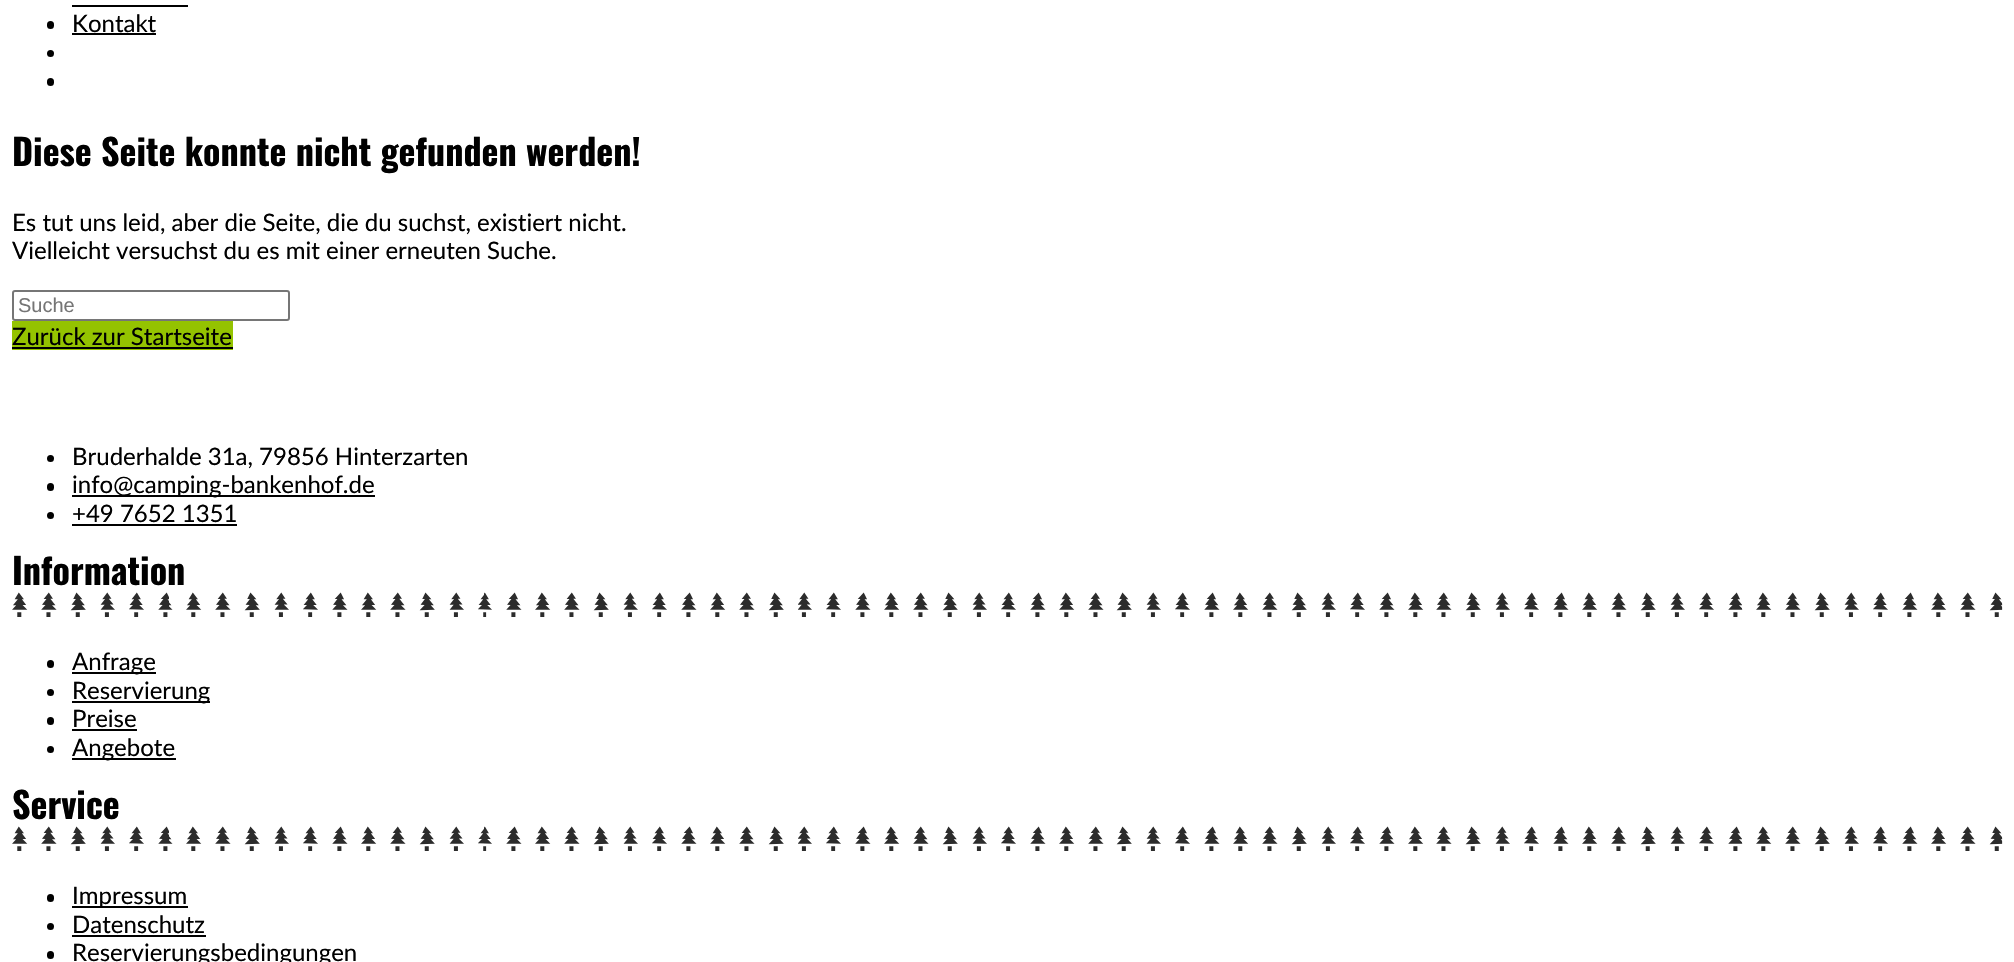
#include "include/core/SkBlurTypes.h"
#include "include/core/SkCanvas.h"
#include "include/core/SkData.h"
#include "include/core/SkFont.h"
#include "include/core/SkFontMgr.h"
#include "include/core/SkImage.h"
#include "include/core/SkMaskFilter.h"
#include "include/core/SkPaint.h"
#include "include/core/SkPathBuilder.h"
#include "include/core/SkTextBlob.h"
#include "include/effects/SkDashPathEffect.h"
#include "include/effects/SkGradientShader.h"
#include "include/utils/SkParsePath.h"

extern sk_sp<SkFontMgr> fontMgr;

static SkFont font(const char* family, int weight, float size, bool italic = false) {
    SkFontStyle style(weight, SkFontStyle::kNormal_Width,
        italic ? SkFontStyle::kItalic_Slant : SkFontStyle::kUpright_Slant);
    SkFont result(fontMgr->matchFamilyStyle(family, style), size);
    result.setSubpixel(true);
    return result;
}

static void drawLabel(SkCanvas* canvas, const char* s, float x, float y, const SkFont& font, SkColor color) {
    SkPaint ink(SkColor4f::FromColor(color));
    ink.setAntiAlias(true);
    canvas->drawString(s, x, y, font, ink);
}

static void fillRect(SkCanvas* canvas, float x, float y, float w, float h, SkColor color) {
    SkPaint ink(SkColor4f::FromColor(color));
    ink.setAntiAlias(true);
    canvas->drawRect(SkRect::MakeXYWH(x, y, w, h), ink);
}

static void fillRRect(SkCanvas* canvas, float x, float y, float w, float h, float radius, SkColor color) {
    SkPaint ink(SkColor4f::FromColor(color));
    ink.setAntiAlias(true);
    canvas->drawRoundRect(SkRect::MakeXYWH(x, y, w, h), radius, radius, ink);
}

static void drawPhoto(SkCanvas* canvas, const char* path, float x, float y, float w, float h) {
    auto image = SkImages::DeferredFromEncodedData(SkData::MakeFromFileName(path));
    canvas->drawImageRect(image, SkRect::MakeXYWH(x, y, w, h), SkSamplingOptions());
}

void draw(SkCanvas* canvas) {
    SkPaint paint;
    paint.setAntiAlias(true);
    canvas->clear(0xFFFFFFFF);
    fillRect(canvas, 72, 5, 116, 2, 0xFF000000);
    fillRRect(canvas, 47, 21, 7, 8, 3.5f, 0xFF000000);
    SkFont font1 = font("Lato", 400, 24);
    drawLabel(canvas, "Kontakt", 72, 32, font1, 0xFF000000);
    fillRect(canvas, 72, 33, 84, 2, 0xFF000000);
    paint.setColor(0xFF000000);
    canvas->drawCircle(50.5f, 53.5f, 3.5f, paint);
    fillRRect(canvas, 47, 78, 7, 8, 3.5f, 0xFF000000);
    SkFont font2 = font("Oswald", 700, 36);
    drawLabel(canvas, "Diese Seite konnte nicht gefunden werden!", 12, 166, font2, 0xFF000000);
    drawLabel(canvas, "Es tut uns leid, aber die Seite, die du suchst, existiert nicht.", 12, 231, font1, 0xFF000000);
    drawLabel(canvas, "Vielleicht versuchst du es mit einer erneuten Suche.", 12, 259, font1, 0xFF000000);
    paint.setStroke(true);
    paint.setStrokeWidth(2);
    paint.setColor(0xFF767676);
    canvas->drawRoundRect(SkRect::MakeXYWH(13, 291, 276, 29), 2, 2, paint);
    SkFont font3 = font("Liberation Sans", 400, 20);
    drawLabel(canvas, "Suche", 18, 312, font3, 0xFF757575);
    fillRect(canvas, 12, 321, 221, 29, 0xFF94C300);
    drawLabel(canvas, "Zurück zur Startseite", 12, 345, font1, 0xFF000000);
    fillRect(canvas, 12, 347, 221, 2, 0xFF000000);
    paint.setStroke(false);
    paint.setColor(0xFF000000);
    canvas->drawCircle(50.5f, 458.5f, 3.5f, paint);
    drawLabel(canvas, "Bruderhalde 31a, 79856 Hinterzarten", 72, 465, font1, 0xFF000000);
    fillRRect(canvas, 47, 483, 7, 8, 3.5f, 0xFF000000);
    fillRect(canvas, 72, 495, 303, 2, 0xFF000000);
    drawLabel(canvas, "info@camping-bankenhof.de", 72, 493, font1, 0xFF000000);
    canvas->drawCircle(50.5f, 515.5f, 3.5f, paint);
    drawLabel(canvas, "+49 7652 1351", 72, 522, font1, 0xFF000000);
    fillRect(canvas, 72, 524, 165, 2, 0xFF000000);
    drawLabel(canvas, "Information", 12, 585, font2, 0xFF000000);
    drawPhoto(canvas, "assets/img1.png", 12, 592, 1991, 25);
    fillRRect(canvas, 47, 660, 7, 8, 3.5f, 0xFF000000);
    fillRect(canvas, 72, 672, 84, 2, 0xFF000000);
    drawLabel(canvas, "Anfrage", 72, 670, font1, 0xFF000000);
    canvas->drawCircle(50.5f, 692.5f, 3.5f, paint);
    fillRect(canvas, 72, 701, 138, 2, 0xFF000000);
    drawLabel(canvas, "Reservierung", 72, 699, font1, 0xFF000000);
    fillRRect(canvas, 47, 717, 7, 8, 3.5f, 0xFF000000);
    drawLabel(canvas, "Preise", 72, 727, font1, 0xFF000000);
    fillRect(canvas, 72, 729, 65, 2, 0xFF000000);
    canvas->drawCircle(50.5f, 749.5f, 3.5f, paint);
    fillRect(canvas, 72, 758, 104, 2, 0xFF000000);
    drawLabel(canvas, "Angebote", 72, 756, font1, 0xFF000000);
    drawLabel(canvas, "Service", 12, 819, font2, 0xFF000000);
    drawPhoto(canvas, "assets/img1.png", 12, 826, 1991, 25);
    fillRRect(canvas, 47, 894, 7, 8, 3.5f, 0xFF000000);
    fillRect(canvas, 72, 906, 116, 2, 0xFF000000);
    drawLabel(canvas, "Impressum", 72, 904, font1, 0xFF000000);
    canvas->drawCircle(50.5f, 926.5f, 3.5f, paint);
    drawLabel(canvas, "Datenschutz", 72, 933, font1, 0xFF000000);
    fillRect(canvas, 72, 935, 134, 2, 0xFF000000);
    fillRRect(canvas, 47, 951, 7, 8, 3.5f, 0xFF000000);
    drawLabel(canvas, "Reservierungsbedingungen", 72, 961, font1, 0xFF000000);
}
